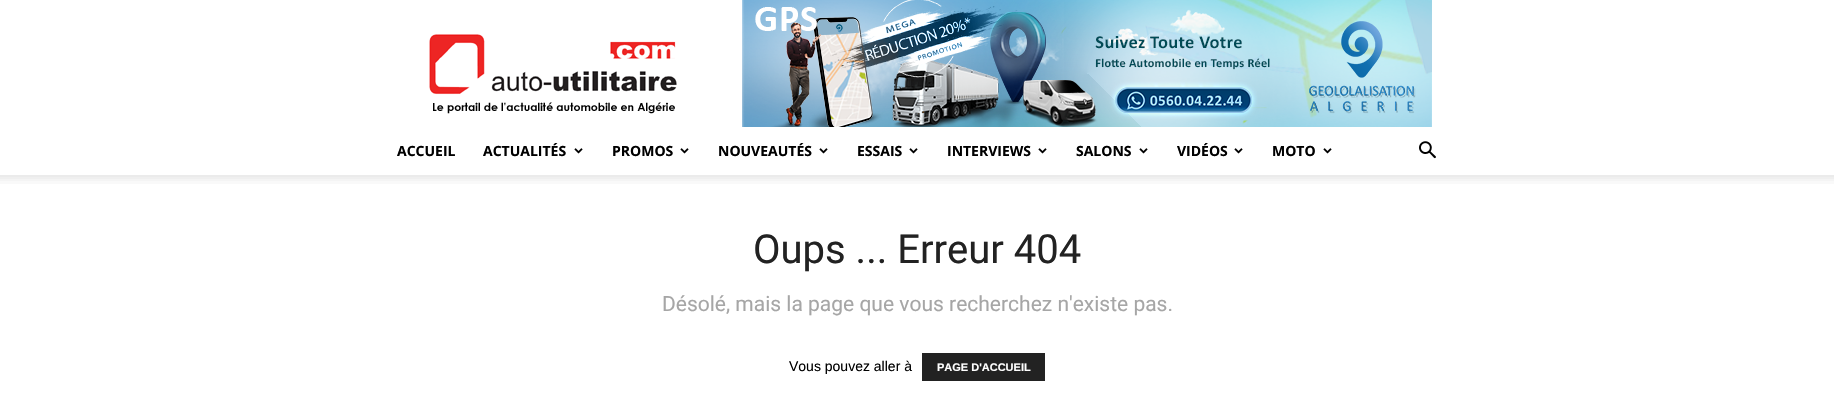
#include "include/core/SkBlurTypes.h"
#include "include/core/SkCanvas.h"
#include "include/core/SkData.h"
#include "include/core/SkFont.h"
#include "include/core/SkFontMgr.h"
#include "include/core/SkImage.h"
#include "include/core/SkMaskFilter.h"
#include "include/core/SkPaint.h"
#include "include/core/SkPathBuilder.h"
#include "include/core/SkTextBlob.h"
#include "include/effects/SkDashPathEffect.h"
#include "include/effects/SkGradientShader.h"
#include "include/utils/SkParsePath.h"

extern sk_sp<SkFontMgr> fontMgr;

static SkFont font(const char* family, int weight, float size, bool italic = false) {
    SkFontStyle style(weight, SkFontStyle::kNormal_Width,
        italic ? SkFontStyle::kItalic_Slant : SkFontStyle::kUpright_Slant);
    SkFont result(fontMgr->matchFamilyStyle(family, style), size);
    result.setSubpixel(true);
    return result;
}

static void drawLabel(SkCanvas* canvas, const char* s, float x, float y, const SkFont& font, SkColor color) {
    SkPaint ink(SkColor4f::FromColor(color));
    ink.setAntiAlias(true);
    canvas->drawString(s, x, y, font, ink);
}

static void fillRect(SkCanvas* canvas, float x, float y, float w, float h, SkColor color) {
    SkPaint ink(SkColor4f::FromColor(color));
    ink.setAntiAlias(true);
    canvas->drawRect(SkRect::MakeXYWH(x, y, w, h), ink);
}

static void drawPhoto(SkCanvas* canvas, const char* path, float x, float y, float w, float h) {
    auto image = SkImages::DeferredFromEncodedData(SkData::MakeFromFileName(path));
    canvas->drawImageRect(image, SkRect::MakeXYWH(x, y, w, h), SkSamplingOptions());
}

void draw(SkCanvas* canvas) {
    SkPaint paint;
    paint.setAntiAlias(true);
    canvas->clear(0xFFFFFFFF);
    drawPhoto(canvas, "assets/img1.png", 429, 34, 248, 80);
    drawPhoto(canvas, "assets/img2.png", 742, 0, 690, 127);
    SkFont font1 = font("Open Sans", 700, 14);
    drawLabel(canvas, "ACCUEIL", 397, 156, font1, 0xFF000000);
    drawLabel(canvas, "ACTUALITÉS", 483, 156, font1, 0xFF000000);
    drawPhoto(canvas, "assets/img3.png", 574, 148, 9, 6);
    drawLabel(canvas, "PROMOS", 612, 156, font1, 0xFF000000);
    drawPhoto(canvas, "assets/img3.png", 680, 148, 9, 6);
    drawLabel(canvas, "NOUVEAUTÉS", 718, 156, font1, 0xFF000000);
    drawPhoto(canvas, "assets/img3.png", 819, 148, 9, 6);
    drawLabel(canvas, "ESSAIS", 857, 156, font1, 0xFF000000);
    drawPhoto(canvas, "assets/img3.png", 909, 148, 9, 6);
    drawLabel(canvas, "INTERVIEWS", 947, 156, font1, 0xFF000000);
    drawPhoto(canvas, "assets/img3.png", 1038, 148, 9, 6);
    drawLabel(canvas, "SALONS", 1076, 156, font1, 0xFF000000);
    drawPhoto(canvas, "assets/img3.png", 1139, 148, 9, 6);
    drawLabel(canvas, "VIDÉOS", 1177, 156, font1, 0xFF000000);
    drawPhoto(canvas, "assets/img3.png", 1234, 148, 9, 6);
    drawLabel(canvas, "MOTO", 1272, 156, font1, 0xFF000000);
    drawPhoto(canvas, "assets/img3.png", 1323, 148, 9, 6);
    drawPhoto(canvas, "assets/img4.png", 1419, 141, 17, 18);
    drawPhoto(canvas, "assets/img5.png", 0, 175, 1834, 9);
    SkFont font2 = font("Roboto", 400, 40);
    drawLabel(canvas, "Oups ... Erreur 404", 753, 263, font2, 0xFF222222);
    SkFont font3 = font("Roboto", 400, 21);
    drawLabel(canvas, "Désolé, mais la page que vous recherchez n'existe pas.", 662, 311, font3, 0xFFA6A6A6);
    SkFont font4 = font("Liberation Sans", 400, 14);
    drawLabel(canvas, "Vous pouvez aller à", 789, 371, font4, 0xFF000000);
    fillRect(canvas, 922, 353, 123, 28, 0xFF222222);
    SkFont font5 = font("Liberation Sans", 700, 11);
    drawLabel(canvas, "PAGE D'ACCUEIL", 937, 371, font5, 0xFFFFFFFF);
}
